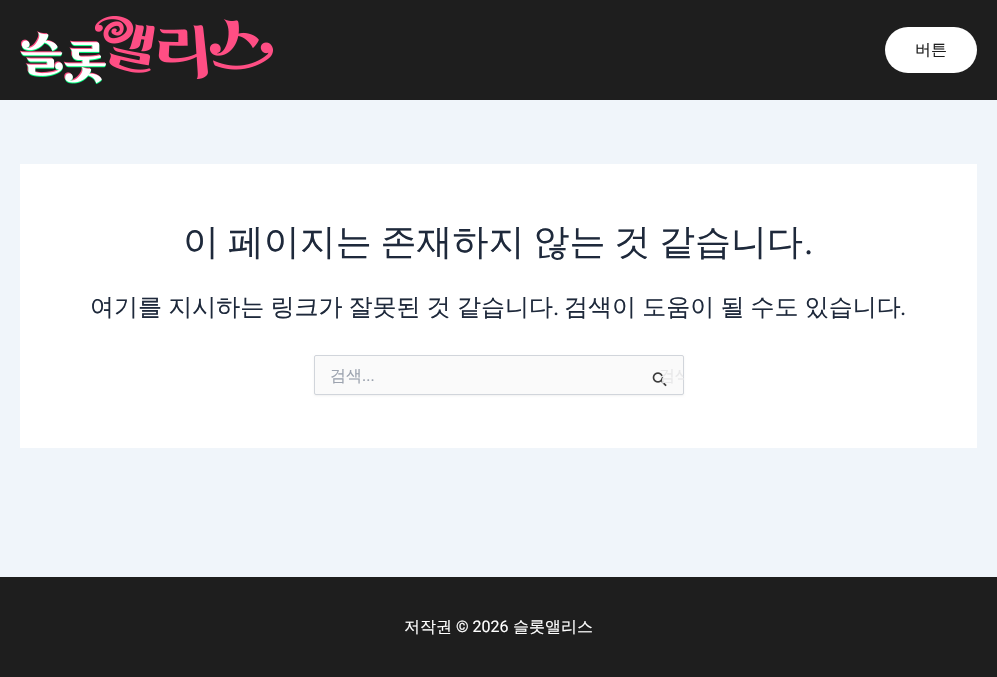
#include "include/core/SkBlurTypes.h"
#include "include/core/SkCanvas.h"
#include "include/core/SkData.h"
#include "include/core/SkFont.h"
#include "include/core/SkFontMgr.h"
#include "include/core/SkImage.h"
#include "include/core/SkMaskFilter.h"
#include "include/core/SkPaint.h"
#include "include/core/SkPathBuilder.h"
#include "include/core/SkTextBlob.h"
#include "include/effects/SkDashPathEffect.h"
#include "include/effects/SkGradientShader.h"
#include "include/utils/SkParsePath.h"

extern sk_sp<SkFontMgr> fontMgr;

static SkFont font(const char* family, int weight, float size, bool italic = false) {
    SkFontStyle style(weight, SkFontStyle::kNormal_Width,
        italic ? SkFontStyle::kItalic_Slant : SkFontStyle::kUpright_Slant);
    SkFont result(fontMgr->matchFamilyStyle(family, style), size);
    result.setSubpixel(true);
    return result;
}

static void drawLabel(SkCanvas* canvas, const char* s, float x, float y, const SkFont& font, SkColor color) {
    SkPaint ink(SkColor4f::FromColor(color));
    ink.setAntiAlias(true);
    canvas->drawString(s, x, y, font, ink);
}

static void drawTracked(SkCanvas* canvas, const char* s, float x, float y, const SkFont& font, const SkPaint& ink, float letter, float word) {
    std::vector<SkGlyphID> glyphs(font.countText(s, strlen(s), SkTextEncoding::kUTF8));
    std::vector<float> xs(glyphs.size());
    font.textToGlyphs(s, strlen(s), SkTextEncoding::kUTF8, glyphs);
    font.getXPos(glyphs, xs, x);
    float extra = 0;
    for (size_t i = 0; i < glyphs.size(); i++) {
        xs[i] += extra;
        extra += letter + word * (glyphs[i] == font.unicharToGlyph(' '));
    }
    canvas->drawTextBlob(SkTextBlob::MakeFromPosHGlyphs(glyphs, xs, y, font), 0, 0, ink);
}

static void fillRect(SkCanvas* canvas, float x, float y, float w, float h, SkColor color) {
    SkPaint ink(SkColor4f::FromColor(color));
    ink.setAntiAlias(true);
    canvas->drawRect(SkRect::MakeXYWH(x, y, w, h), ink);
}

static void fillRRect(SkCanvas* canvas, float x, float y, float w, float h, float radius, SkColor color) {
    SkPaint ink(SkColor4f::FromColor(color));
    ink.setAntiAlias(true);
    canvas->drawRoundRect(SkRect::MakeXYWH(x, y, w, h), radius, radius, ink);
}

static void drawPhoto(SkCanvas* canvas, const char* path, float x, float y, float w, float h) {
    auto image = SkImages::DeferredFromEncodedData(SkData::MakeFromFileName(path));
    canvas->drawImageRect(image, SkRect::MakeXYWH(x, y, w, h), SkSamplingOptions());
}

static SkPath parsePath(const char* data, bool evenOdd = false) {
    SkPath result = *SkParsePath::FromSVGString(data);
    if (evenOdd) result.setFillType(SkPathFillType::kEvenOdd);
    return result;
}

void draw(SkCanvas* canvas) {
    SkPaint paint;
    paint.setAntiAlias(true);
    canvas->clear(0xFFF0F5FA);
    fillRect(canvas, 0, 0, 997, 100, 0xFF1E1E1E);
    drawPhoto(canvas, "assets/img1.png", 20, 16, 253, 68);
    fillRRect(canvas, 885, 27, 92, 46, 23, 0xFFFFFFFF);
    SkFont font1 = font("WenQuanYi Zen Hei", 500, 16);
    drawLabel(canvas, "버튼", 915, 55, font1, 0xFF1E1E1E);
    fillRect(canvas, 20, 164, 957, 284, 0xFFFFFFFF);
    SkFont font2 = font("WenQuanYi Zen Hei", 500, 36);
    paint.setColor(0xFF1E293B);
    drawTracked(canvas, "이 페이지는 존재하지 않는 것 같습니다", 183, 254, font2, paint, 0, -2);
    SkFont font3 = font("Roboto", 400, 36);
    drawLabel(canvas, ".", 804, 254, font3, 0xFF1E293B);
    SkFont font4 = font("WenQuanYi Zen Hei", 500, 24);
    drawTracked(canvas, "여기를 지시하는 링크가 잘못된 것 같습니다", 90, 315, font4, paint, 0, -1);
    SkFont font5 = font("Roboto", 400, 24);
    drawLabel(canvas, ".", 553, 315, font5, 0xFF1E293B);
    drawTracked(canvas, "검색이 도움이 될 수도 있습니다", 564, 315, font4, paint, 0, -1);
    drawLabel(canvas, ".", 900, 315, font5, 0xFF1E293B);
    paint.setColor(0x0D000000);
    paint.setMaskFilter(SkMaskFilter::MakeBlur(kNormal_SkBlurStyle, 1));
    canvas->drawRoundRect(SkRect::MakeXYWH(314, 356, 370, 40), 2, 2, paint);
    paint.setMaskFilter(nullptr);
    paint.setColor(0xFFFAFAFA);
    canvas->drawRoundRect(SkRect::MakeXYWH(314.5f, 355.5f, 369, 39), 1.5f, 1.5f, paint);
    paint.setStroke(true);
    paint.setStrokeWidth(1);
    paint.setColor(0xFFD1D5DB);
    canvas->drawRoundRect(SkRect::MakeXYWH(314.5f, 355.5f, 369, 39), 1.5f, 1.5f, paint);
    drawLabel(canvas, "검색", 330, 381, font1, 0xFF9CA3AF);
    SkFont font6 = font("Roboto", 400, 16);
    drawLabel(canvas, "...", 362, 381, font6, 0xFF9CA3AF);
    drawPhoto(canvas, "assets/img2.png", 652, 372, 15, 15);
    canvas->save();
    canvas->clipPath(parsePath("M641 355H682C683 355 684 356 684 357V395C684 396 683 397 682 397H641C640 397 639 396 639 395V357C639 356 640 355 641 355Z"), true);
    drawLabel(canvas, "검색", 659, 381, font1, 0xFFE8E8E9);
    canvas->restore();
    fillRect(canvas, 0, 577, 997, 100, 0xFF1E1E1E);
    drawLabel(canvas, "저작권", 404, 632, font1, 0xFFFFFFFF);
    drawLabel(canvas, "© 2026", 456, 632, font6, 0xFFFFFFFF);
    drawLabel(canvas, "슬롯앨리스", 513, 632, font1, 0xFFFFFFFF);
}
